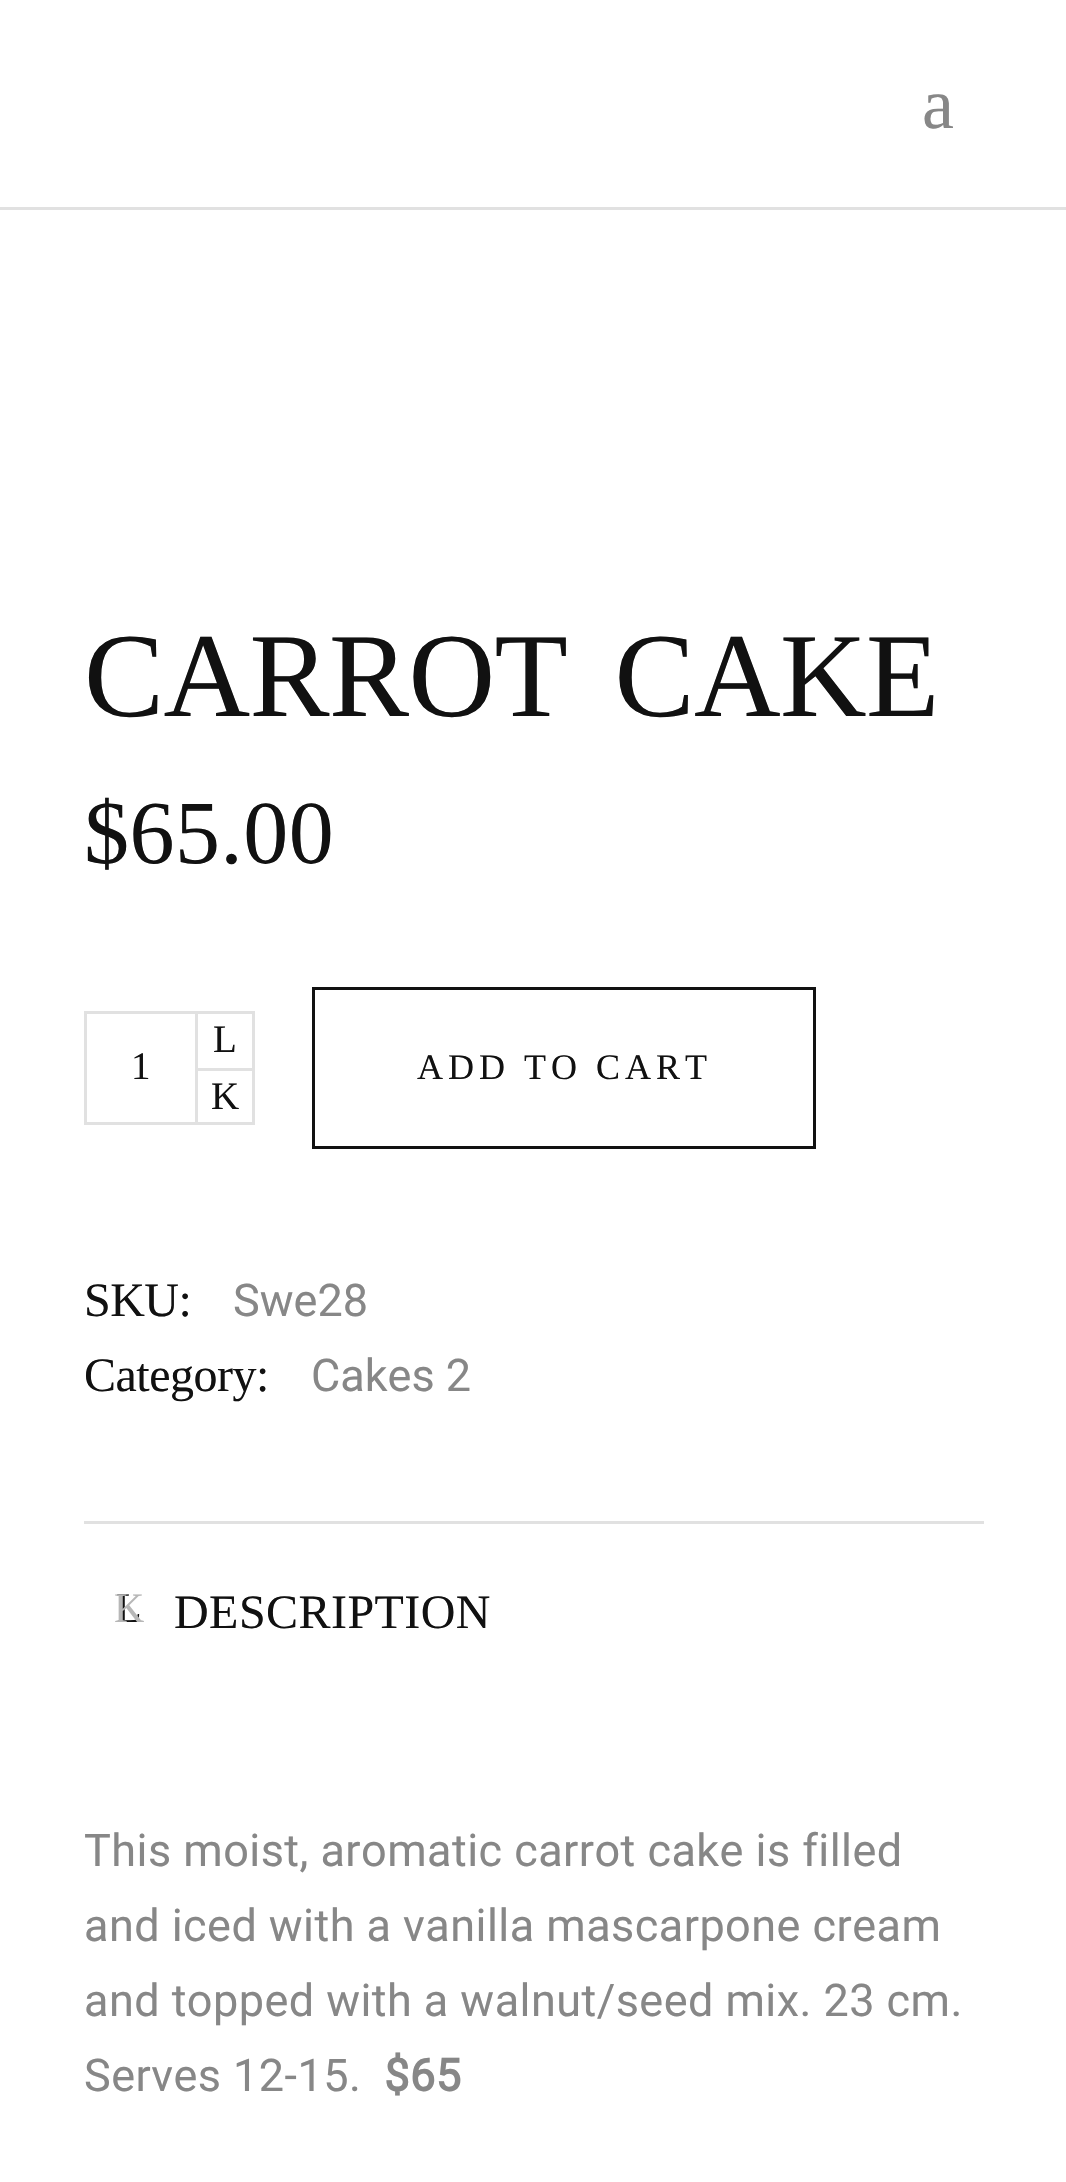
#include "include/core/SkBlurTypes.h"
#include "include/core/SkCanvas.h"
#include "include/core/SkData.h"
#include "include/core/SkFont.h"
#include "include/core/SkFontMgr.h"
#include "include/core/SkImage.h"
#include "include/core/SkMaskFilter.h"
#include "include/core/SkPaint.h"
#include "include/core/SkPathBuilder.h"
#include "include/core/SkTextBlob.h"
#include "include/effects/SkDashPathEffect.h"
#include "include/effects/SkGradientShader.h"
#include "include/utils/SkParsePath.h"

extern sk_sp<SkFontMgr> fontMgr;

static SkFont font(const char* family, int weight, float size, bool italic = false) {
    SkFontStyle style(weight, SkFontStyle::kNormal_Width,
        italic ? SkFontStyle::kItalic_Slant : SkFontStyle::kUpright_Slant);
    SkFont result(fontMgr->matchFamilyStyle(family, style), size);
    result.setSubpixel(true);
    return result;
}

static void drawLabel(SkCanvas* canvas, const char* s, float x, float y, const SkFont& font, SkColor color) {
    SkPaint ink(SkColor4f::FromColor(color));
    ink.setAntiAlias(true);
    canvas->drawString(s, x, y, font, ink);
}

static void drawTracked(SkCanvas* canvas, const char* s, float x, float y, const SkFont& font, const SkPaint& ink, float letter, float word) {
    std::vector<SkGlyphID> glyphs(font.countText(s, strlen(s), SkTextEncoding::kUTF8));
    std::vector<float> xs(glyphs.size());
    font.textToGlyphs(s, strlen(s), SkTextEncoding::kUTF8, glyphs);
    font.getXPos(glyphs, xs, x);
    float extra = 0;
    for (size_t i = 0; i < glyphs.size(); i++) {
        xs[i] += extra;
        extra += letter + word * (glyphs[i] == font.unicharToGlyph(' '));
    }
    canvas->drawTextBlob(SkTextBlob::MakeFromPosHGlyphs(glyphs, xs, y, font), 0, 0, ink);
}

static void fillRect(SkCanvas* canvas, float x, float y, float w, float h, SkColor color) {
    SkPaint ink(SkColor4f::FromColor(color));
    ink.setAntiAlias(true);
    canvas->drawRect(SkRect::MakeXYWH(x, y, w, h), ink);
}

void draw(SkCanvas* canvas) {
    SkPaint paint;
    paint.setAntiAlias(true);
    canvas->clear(0xFFFFFFFF);
    fillRect(canvas, 0, 207, 1066, 3, 0xFFE1E1E1);
    SkFont font1 = font("Liberation Serif", 400, 72);
    paint.setColor(0xFF878787);
    drawTracked(canvas, "a", 922, 128, font1, paint, 0.45f, 0);
    SkFont font2 = font("Liberation Serif", 400, 120);
    paint.setColor(0xFF111111);
    drawTracked(canvas, "CARROT CAKE", 84, 716, font2, paint, -0.6f, 18);
    SkFont font3 = font("Liberation Serif", 400, 90);
    drawTracked(canvas, "$65.00", 84, 863, font3, paint, 0.45f, 0);
    fillRect(canvas, 198, 1011, 57, 3, 0xFFE1E1E1);
    fillRect(canvas, 252, 1011, 3, 57, 0xFFE1E1E1);
    SkFont font4 = font("Liberation Serif", 400, 39);
    drawTracked(canvas, "L", 213, 1052, font4, paint, 0.45f, 0);
    paint.setStroke(true);
    paint.setStrokeWidth(3);
    paint.setColor(0xFFE1E1E1);
    canvas->drawRect(SkRect::MakeXYWH(85.5f, 1012.5f, 111, 111), paint);
    drawLabel(canvas, "1", 131, 1079, font4, 0xFF111111);
    fillRect(canvas, 198, 1068, 57, 3, 0xFFE1E1E1);
    fillRect(canvas, 252, 1068, 3, 57, 0xFFE1E1E1);
    fillRect(canvas, 198, 1122, 57, 3, 0xFFE1E1E1);
    paint.setStroke(false);
    paint.setColor(0xFF111111);
    drawTracked(canvas, "K", 211, 1109, font4, paint, 0.45f, 0);
    paint.setStroke(true);
    canvas->drawRect(SkRect::MakeXYWH(313.5f, 988.5f, 501, 159), paint);
    SkFont font5 = font("Liberation Serif", 400, 36);
    paint.setStroke(false);
    drawTracked(canvas, "ADD TO CART", 417, 1079, font5, paint, 5, 0);
    SkFont font6 = font("Liberation Serif", 400, 48);
    drawTracked(canvas, "SKU:", 84, 1316, font6, paint, -0.5f, 0);
    SkFont font7 = font("Roboto", 400, 45);
    drawLabel(canvas, "Swe28", 233, 1316, font7, 0xFF878787);
    drawTracked(canvas, "Category:", 84, 1391, font6, paint, -0.5f, 0);
    drawLabel(canvas, "Cakes 2", 311, 1391, font7, 0xFF878787);
    fillRect(canvas, 84, 1521, 900, 3, 0xFFE1E1E1);
    SkFont font8 = font("Liberation Serif", 400, 42);
    drawTracked(canvas, "L", 116, 1622, font8, paint, 0.45f, 0);
    paint.setColor(0xFFB7B7B7);
    drawTracked(canvas, "K", 114, 1622, font8, paint, 0.45f, 0);
    paint.setColor(0xFF111111);
    drawTracked(canvas, "DESCRIPTION", 174, 1628, font6, paint, 0.45f, 0);
    paint.setColor(0xFF878787);
    drawTracked(canvas, "This moist, aromatic carrot cake is filled", 84, 1866, font7, paint, 0.45f, 0);
    drawTracked(canvas, "and iced with a vanilla mascarpone cream", 84, 1941, font7, paint, 0.45f, 0);
    drawTracked(canvas, "and topped with a walnut/seed mix. 23 cm.", 84, 2016, font7, paint, 0.45f, 0);
    drawTracked(canvas, "Serves 12-15.", 84, 2091, font7, paint, 0.45f, 0);
    SkFont font9 = font("Roboto", 700, 45);
    drawTracked(canvas, "$65", 384, 2091, font9, paint, 0.45f, 0);
}
